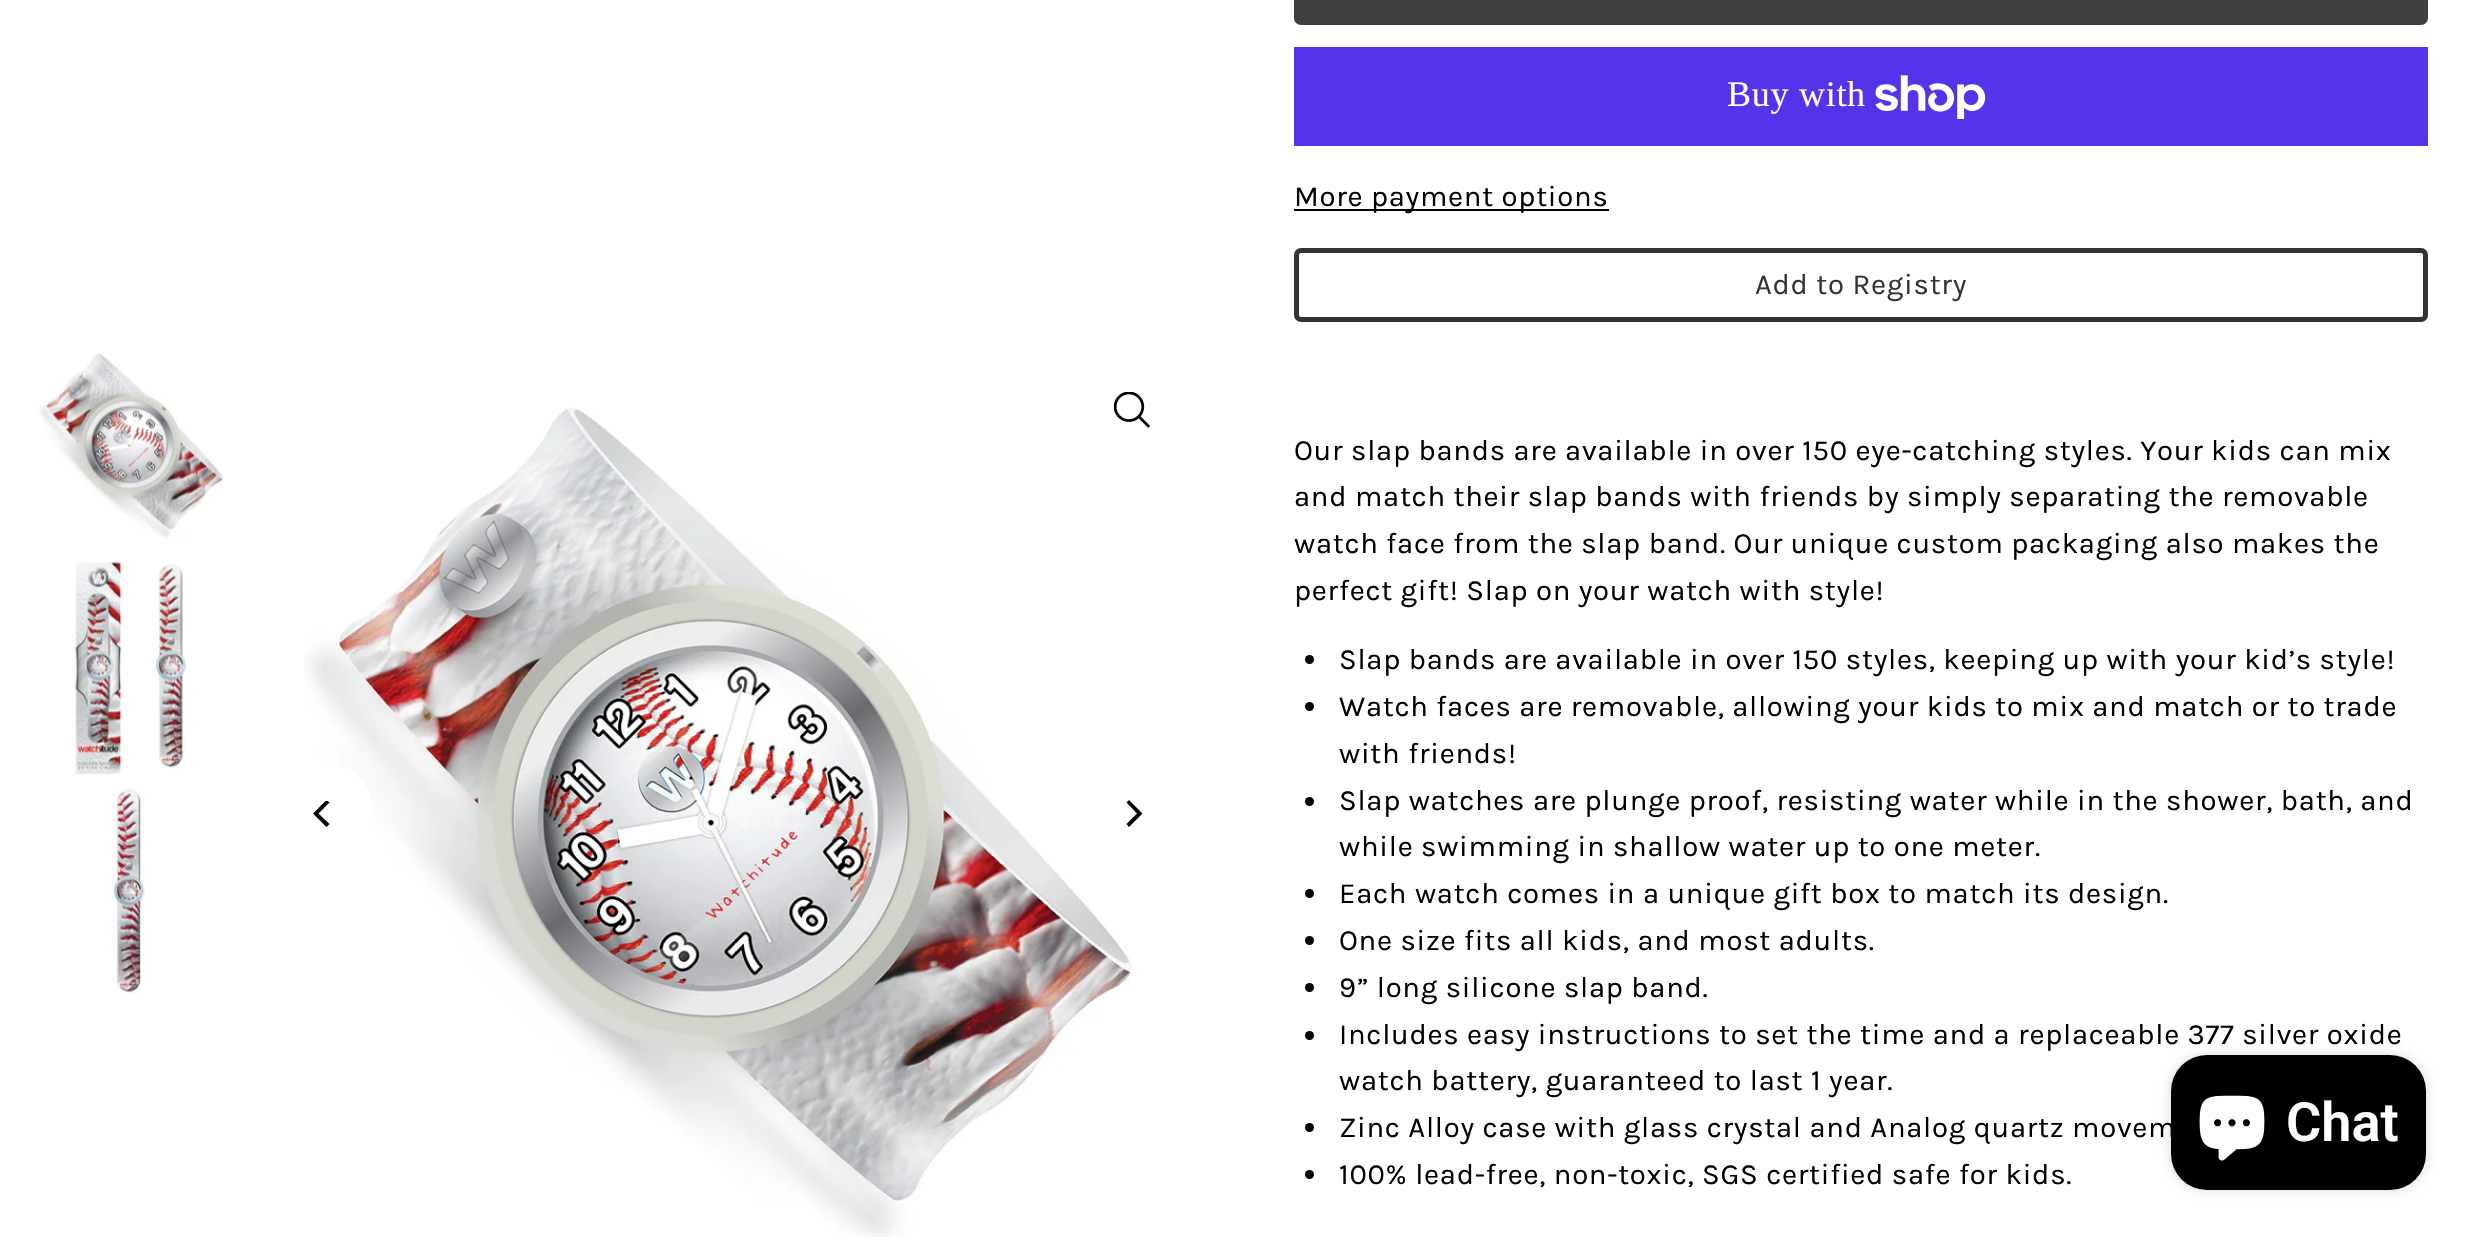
#include "include/core/SkBlurTypes.h"
#include "include/core/SkCanvas.h"
#include "include/core/SkData.h"
#include "include/core/SkFont.h"
#include "include/core/SkFontMgr.h"
#include "include/core/SkImage.h"
#include "include/core/SkMaskFilter.h"
#include "include/core/SkPaint.h"
#include "include/core/SkPathBuilder.h"
#include "include/core/SkTextBlob.h"
#include "include/effects/SkDashPathEffect.h"
#include "include/effects/SkGradientShader.h"
#include "include/utils/SkParsePath.h"

extern sk_sp<SkFontMgr> fontMgr;

static SkFont font(const char* family, int weight, float size, bool italic = false) {
    SkFontStyle style(weight, SkFontStyle::kNormal_Width,
        italic ? SkFontStyle::kItalic_Slant : SkFontStyle::kUpright_Slant);
    SkFont result(fontMgr->matchFamilyStyle(family, style), size);
    result.setSubpixel(true);
    return result;
}

static void drawLabel(SkCanvas* canvas, const char* s, float x, float y, const SkFont& font, SkColor color) {
    SkPaint ink(SkColor4f::FromColor(color));
    ink.setAntiAlias(true);
    canvas->drawString(s, x, y, font, ink);
}

static void drawTracked(SkCanvas* canvas, const char* s, float x, float y, const SkFont& font, const SkPaint& ink, float letter, float word) {
    std::vector<SkGlyphID> glyphs(font.countText(s, strlen(s), SkTextEncoding::kUTF8));
    std::vector<float> xs(glyphs.size());
    font.textToGlyphs(s, strlen(s), SkTextEncoding::kUTF8, glyphs);
    font.getXPos(glyphs, xs, x);
    float extra = 0;
    for (size_t i = 0; i < glyphs.size(); i++) {
        xs[i] += extra;
        extra += letter + word * (glyphs[i] == font.unicharToGlyph(' '));
    }
    canvas->drawTextBlob(SkTextBlob::MakeFromPosHGlyphs(glyphs, xs, y, font), 0, 0, ink);
}

static void fillRect(SkCanvas* canvas, float x, float y, float w, float h, SkColor color) {
    SkPaint ink(SkColor4f::FromColor(color));
    ink.setAntiAlias(true);
    canvas->drawRect(SkRect::MakeXYWH(x, y, w, h), ink);
}

static void fillRRect(SkCanvas* canvas, float x, float y, float w, float h, float radius, SkColor color) {
    SkPaint ink(SkColor4f::FromColor(color));
    ink.setAntiAlias(true);
    canvas->drawRoundRect(SkRect::MakeXYWH(x, y, w, h), radius, radius, ink);
}

static void drawPhoto(SkCanvas* canvas, const char* path, float x, float y, float w, float h) {
    auto image = SkImages::DeferredFromEncodedData(SkData::MakeFromFileName(path));
    canvas->drawImageRect(image, SkRect::MakeXYWH(x, y, w, h), SkSamplingOptions());
}

static SkPath parsePath(const char* data, bool evenOdd = false) {
    SkPath result = *SkParsePath::FromSVGString(data);
    if (evenOdd) result.setFillType(SkPathFillType::kEvenOdd);
    return result;
}

void draw(SkCanvas* canvas) {
    SkPaint paint;
    paint.setAntiAlias(true);
    canvas->clear(0xFFFFFFFF);
    drawPhoto(canvas, "assets/img1.png", 39, 353, 184, 186);
    drawPhoto(canvas, "assets/img2.png", 74, 561, 114, 214);
    drawPhoto(canvas, "assets/img3.png", 111, 788, 34, 205);
    drawPhoto(canvas, "assets/img4.png", 304, 407, 827, 830);
    drawPhoto(canvas, "assets/img5.png", 1114, 392, 36, 36);
    fillRRect(canvas, 272, 763, 102, 101, 50.5f, 0xFFFFFFFF);
    canvas->save();
    canvas->clipRect(SkRect::MakeXYWH(311, 801, 27, 27));
    paint.setColor(0xFF000000);
    canvas->drawPath(parsePath("M313 813.5L326.5 827L329.5 824L318.5 813.5L329.5 802.5L326.5 800Z"), paint);
    canvas->restore();
    canvas->drawPath(parsePath("M1142.5 813.5L1129 800L1126.5 802.5L1137 813.5L1126.5 824L1129 827Z"), paint);
    fillRRect(canvas, 1294, -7, 1134, 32, 7, 0xFF3E3E3E);
    fillRect(canvas, 1294, 47, 1134, 99, 0xFF5433EB);
    SkFont font1 = font("Liberation Serif", 400, 36);
    paint.setColor(0xFFFFFFFF);
    drawTracked(canvas, "Buy with", 1727, 106, font1, paint, 0.73f, 0);
    drawPhoto(canvas, "assets/img6.png", 1875, 75, 111, 44);
    fillRect(canvas, 1294, 209, 315, 2, 0xFF000000);
    SkFont font2 = font("Karla", 400, 29.25f);
    paint.setColor(0xFF000000);
    drawTracked(canvas, "More payment options", 1294, 206, font2, paint, 0.73f, 0);
    paint.setStroke(true);
    paint.setStrokeWidth(5);
    paint.setColor(0xFF333333);
    canvas->drawRoundRect(SkRect::MakeXYWH(1296.5f, 250.5f, 1129, 69), 4.5f, 4.5f, paint);
    paint.setStroke(false);
    drawTracked(canvas, "Add to Registry", 1755, 294, font2, paint, 0.73f, 0);
    paint.setColor(0xFF000000);
    drawTracked(canvas, "Our slap bands are available in over 150 eye-catching styles. Your kids can mix", 1294, 460, font2, paint, 0.73f, 0);
    drawTracked(canvas, "and match their slap bands with friends by simply separating the removable", 1294, 506, font2, paint, 0.73f, 0);
    drawTracked(canvas, "watch face from the slap band. Our unique custom packaging also makes the", 1294, 553, font2, paint, 0.73f, 0);
    drawTracked(canvas, "perfect gift! Slap on your watch with style!", 1294, 600, font2, paint, 0.73f, 0);
    canvas->drawCircle(1309.5f, 659.5f, 4.5f, paint);
    drawTracked(canvas, "Slap bands are available in over 150 styles, keeping up with your kid’s style!", 1339, 669, font2, paint, 0.73f, 0);
    canvas->drawCircle(1309.5f, 706.5f, 4.5f, paint);
    drawTracked(canvas, "Watch faces are removable, allowing your kids to mix and match or to trade", 1339, 716, font2, paint, 0.73f, 0);
    drawTracked(canvas, "with friends!", 1339, 763, font2, paint, 0.73f, 0);
    canvas->drawCircle(1309.5f, 801.5f, 4.5f, paint);
    drawTracked(canvas, "Slap watches are plunge proof, resisting water while in the shower, bath, and", 1339, 810, font2, paint, 0.73f, 0);
    drawTracked(canvas, "while swimming in shallow water up to one meter.", 1339, 856, font2, paint, 0.73f, 0);
    canvas->drawCircle(1309.5f, 893.5f, 4.5f, paint);
    drawTracked(canvas, "Each watch comes in a unique gift box to match its design.", 1339, 903, font2, paint, 0.73f, 0);
    canvas->drawCircle(1309.5f, 940.5f, 4.5f, paint);
    drawTracked(canvas, "One size fits all kids, and most adults.", 1339, 950, font2, paint, 0.73f, 0);
    canvas->drawCircle(1309.5f, 987.5f, 4.5f, paint);
    drawTracked(canvas, "9” long silicone slap band.", 1339, 997, font2, paint, 0.73f, 0);
    canvas->drawCircle(1309.5f, 1035.5f, 4.5f, paint);
    drawTracked(canvas, "Includes easy instructions to set the time and a replaceable 377 silver oxide", 1339, 1044, font2, paint, 0.73f, 0);
    drawTracked(canvas, "watch battery, guaranteed to last 1 year.", 1339, 1090, font2, paint, 0.73f, 0);
    canvas->drawCircle(1309.5f, 1127.5f, 4.5f, paint);
    drawTracked(canvas, "Zinc Alloy case with glass crystal and Analog quartz movem", 1339, 1137, font2, paint, 0.73f, 0);
    canvas->drawCircle(1309.5f, 1174.5f, 4.5f, paint);
    drawTracked(canvas, "100% lead-free, non-toxic, SGS certified safe for kids.", 1339, 1184, font2, paint, 0.73f, 0);
    paint.setColor(0x26000000);
    paint.setMaskFilter(SkMaskFilter::MakeBlur(kNormal_SkBlurStyle, 5.5f));
    canvas->drawRoundRect(SkRect::MakeXYWH(2171, 1055, 255, 135), 36, 36, paint);
    paint.setMaskFilter(nullptr);
    fillRRect(canvas, 2171, 1055, 255, 135, 36, 0xFF000000);
    drawPhoto(canvas, "assets/img7.png", 2199, 1095, 66, 66);
    SkFont font3 = font("Roboto", 600, 54);
    drawLabel(canvas, "Chat", 2286, 1141, font3, 0xFFFFFFFF);
}
